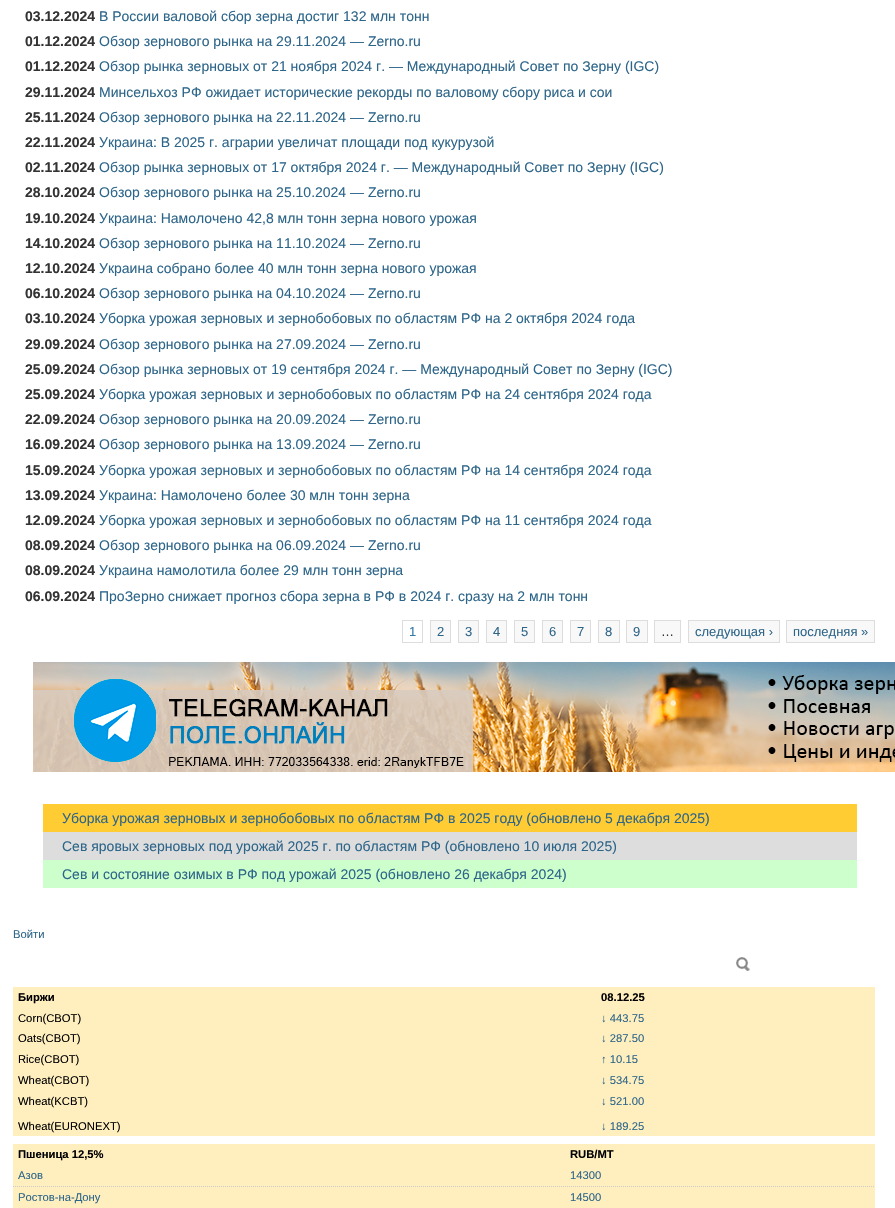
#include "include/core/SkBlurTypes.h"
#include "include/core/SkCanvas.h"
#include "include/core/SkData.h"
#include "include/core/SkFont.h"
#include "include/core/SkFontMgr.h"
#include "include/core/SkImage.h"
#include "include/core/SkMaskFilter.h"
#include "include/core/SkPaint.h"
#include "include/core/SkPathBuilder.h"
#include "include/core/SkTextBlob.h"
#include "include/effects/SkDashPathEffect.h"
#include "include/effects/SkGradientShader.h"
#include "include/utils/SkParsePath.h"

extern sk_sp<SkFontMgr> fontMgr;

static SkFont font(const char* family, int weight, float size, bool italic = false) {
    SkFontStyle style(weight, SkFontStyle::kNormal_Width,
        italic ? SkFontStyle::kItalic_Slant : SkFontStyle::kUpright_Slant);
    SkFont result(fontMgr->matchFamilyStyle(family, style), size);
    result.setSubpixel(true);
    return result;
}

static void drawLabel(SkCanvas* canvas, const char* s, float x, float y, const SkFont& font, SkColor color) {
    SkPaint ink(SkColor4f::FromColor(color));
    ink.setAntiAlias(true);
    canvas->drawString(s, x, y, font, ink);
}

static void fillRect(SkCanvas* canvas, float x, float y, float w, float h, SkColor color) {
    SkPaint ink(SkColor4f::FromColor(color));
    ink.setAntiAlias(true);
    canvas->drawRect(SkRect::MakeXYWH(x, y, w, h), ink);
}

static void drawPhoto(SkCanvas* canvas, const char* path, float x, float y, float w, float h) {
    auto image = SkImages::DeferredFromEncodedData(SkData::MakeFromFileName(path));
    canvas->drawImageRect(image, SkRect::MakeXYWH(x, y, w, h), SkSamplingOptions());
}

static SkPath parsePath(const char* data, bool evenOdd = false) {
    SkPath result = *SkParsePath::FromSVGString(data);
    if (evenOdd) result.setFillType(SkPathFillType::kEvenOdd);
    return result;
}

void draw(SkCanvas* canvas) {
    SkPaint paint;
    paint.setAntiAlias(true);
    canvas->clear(0xFFFFFFFF);
    SkFont font1 = font("Liberation Sans", 700, 14);
    drawLabel(canvas, "03.12.2024", 25, 21, font1, 0xFF333333);
    SkFont font2 = font("Liberation Sans", 400, 14);
    drawLabel(canvas, "В России валовой сбор зерна достиг 132 млн тонн", 99, 21, font2, 0xFF2D6589);
    drawLabel(canvas, "01.12.2024", 25, 46, font1, 0xFF333333);
    drawLabel(canvas, "Обзор зернового рынка на 29.11.2024 — Zerno.ru", 99, 46, font2, 0xFF2D6589);
    drawLabel(canvas, "01.12.2024", 25, 71, font1, 0xFF333333);
    drawLabel(canvas, "Обзор рынка зерновых от 21 ноября 2024 г. — Международный Совет по Зерну (IGC)", 99, 71, font2, 0xFF2D6589);
    drawLabel(canvas, "29.11.2024", 25, 97, font1, 0xFF333333);
    drawLabel(canvas, "Минсельхоз РФ ожидает исторические рекорды по валовому сбору риса и сои", 99, 97, font2, 0xFF2D6589);
    drawLabel(canvas, "25.11.2024", 25, 122, font1, 0xFF333333);
    drawLabel(canvas, "Обзор зернового рынка на 22.11.2024 — Zerno.ru", 99, 122, font2, 0xFF2D6589);
    drawLabel(canvas, "22.11.2024", 25, 147, font1, 0xFF333333);
    drawLabel(canvas, "Украина: В 2025 г. аграрии увеличат площади под кукурузой", 99, 147, font2, 0xFF2D6589);
    drawLabel(canvas, "02.11.2024", 25, 172, font1, 0xFF333333);
    drawLabel(canvas, "Обзор рынка зерновых от 17 октября 2024 г. — Международный Совет по Зерну (IGC)", 99, 172, font2, 0xFF2D6589);
    drawLabel(canvas, "28.10.2024", 25, 197, font1, 0xFF333333);
    drawLabel(canvas, "Обзор зернового рынка на 25.10.2024 — Zerno.ru", 99, 197, font2, 0xFF2D6589);
    drawLabel(canvas, "19.10.2024", 25, 223, font1, 0xFF333333);
    drawLabel(canvas, "Украина: Намолочено 42,8 млн тонн зерна нового урожая", 99, 223, font2, 0xFF2D6589);
    drawLabel(canvas, "14.10.2024", 25, 248, font1, 0xFF333333);
    drawLabel(canvas, "Обзор зернового рынка на 11.10.2024 — Zerno.ru", 99, 248, font2, 0xFF2D6589);
    drawLabel(canvas, "12.10.2024", 25, 273, font1, 0xFF333333);
    drawLabel(canvas, "Украина собрано более 40 млн тонн зерна нового урожая", 99, 273, font2, 0xFF2D6589);
    drawLabel(canvas, "06.10.2024", 25, 298, font1, 0xFF333333);
    drawLabel(canvas, "Обзор зернового рынка на 04.10.2024 — Zerno.ru", 99, 298, font2, 0xFF2D6589);
    drawLabel(canvas, "03.10.2024", 25, 323, font1, 0xFF333333);
    drawLabel(canvas, "Уборка урожая зерновых и зернобобовых по областям РФ на 2 октября 2024 года", 99, 323, font2, 0xFF2D6589);
    drawLabel(canvas, "29.09.2024", 25, 349, font1, 0xFF333333);
    drawLabel(canvas, "Обзор зернового рынка на 27.09.2024 — Zerno.ru", 99, 349, font2, 0xFF2D6589);
    drawLabel(canvas, "25.09.2024", 25, 374, font1, 0xFF333333);
    drawLabel(canvas, "Обзор рынка зерновых от 19 сентября 2024 г. — Международный Совет по Зерну (IGC)", 99, 374, font2, 0xFF2D6589);
    drawLabel(canvas, "25.09.2024", 25, 399, font1, 0xFF333333);
    drawLabel(canvas, "Уборка урожая зерновых и зернобобовых по областям РФ на 24 сентября 2024 года", 99, 399, font2, 0xFF2D6589);
    drawLabel(canvas, "22.09.2024", 25, 424, font1, 0xFF333333);
    drawLabel(canvas, "Обзор зернового рынка на 20.09.2024 — Zerno.ru", 99, 424, font2, 0xFF2D6589);
    drawLabel(canvas, "16.09.2024", 25, 449, font1, 0xFF333333);
    drawLabel(canvas, "Обзор зернового рынка на 13.09.2024 — Zerno.ru", 99, 449, font2, 0xFF2D6589);
    drawLabel(canvas, "15.09.2024", 25, 475, font1, 0xFF333333);
    drawLabel(canvas, "Уборка урожая зерновых и зернобобовых по областям РФ на 14 сентября 2024 года", 99, 475, font2, 0xFF2D6589);
    drawLabel(canvas, "13.09.2024", 25, 500, font1, 0xFF333333);
    drawLabel(canvas, "Украина: Намолочено более 30 млн тонн зерна", 99, 500, font2, 0xFF2D6589);
    drawLabel(canvas, "12.09.2024", 25, 525, font1, 0xFF333333);
    drawLabel(canvas, "Уборка урожая зерновых и зернобобовых по областям РФ на 11 сентября 2024 года", 99, 525, font2, 0xFF2D6589);
    drawLabel(canvas, "08.09.2024", 25, 550, font1, 0xFF333333);
    drawLabel(canvas, "Обзор зернового рынка на 06.09.2024 — Zerno.ru", 99, 550, font2, 0xFF2D6589);
    drawLabel(canvas, "08.09.2024", 25, 575, font1, 0xFF333333);
    drawLabel(canvas, "Украина намолотила более 29 млн тонн зерна", 99, 575, font2, 0xFF2D6589);
    drawLabel(canvas, "06.09.2024", 25, 601, font1, 0xFF333333);
    drawLabel(canvas, "ПроЗерно снижает прогноз сбора зерна в РФ в 2024 г. сразу на 2 млн тонн", 99, 601, font2, 0xFF2D6589);
    paint.setStroke(true);
    paint.setStrokeWidth(1);
    paint.setColor(0xFFDDDDDD);
    canvas->drawRect(SkRect::MakeXYWH(402.5f, 620.5f, 20, 22), paint);
    SkFont font3 = font("Liberation Sans", 400, 13);
    drawLabel(canvas, "1", 409, 636, font3, 0xFF367AAB);
    paint.setStroke(false);
    paint.setColor(0xFFF8F8F8);
    canvas->drawRect(SkRect::MakeXYWH(430.5f, 620.5f, 20, 22), paint);
    paint.setStroke(true);
    paint.setColor(0xFFDDDDDD);
    canvas->drawRect(SkRect::MakeXYWH(430.5f, 620.5f, 20, 22), paint);
    drawLabel(canvas, "2", 437, 636, font3, 0xFF2D6589);
    paint.setStroke(false);
    paint.setColor(0xFFF8F8F8);
    canvas->drawRect(SkRect::MakeXYWH(458.5f, 620.5f, 20, 22), paint);
    paint.setStroke(true);
    paint.setColor(0xFFDDDDDD);
    canvas->drawRect(SkRect::MakeXYWH(458.5f, 620.5f, 20, 22), paint);
    drawLabel(canvas, "3", 465, 636, font3, 0xFF2D6589);
    paint.setStroke(false);
    paint.setColor(0xFFF8F8F8);
    canvas->drawRect(SkRect::MakeXYWH(486.5f, 620.5f, 20, 22), paint);
    paint.setStroke(true);
    paint.setColor(0xFFDDDDDD);
    canvas->drawRect(SkRect::MakeXYWH(486.5f, 620.5f, 20, 22), paint);
    drawLabel(canvas, "4", 493, 636, font3, 0xFF2D6589);
    paint.setStroke(false);
    paint.setColor(0xFFF8F8F8);
    canvas->drawRect(SkRect::MakeXYWH(514.5f, 620.5f, 20, 22), paint);
    paint.setStroke(true);
    paint.setColor(0xFFDDDDDD);
    canvas->drawRect(SkRect::MakeXYWH(514.5f, 620.5f, 20, 22), paint);
    drawLabel(canvas, "5", 521, 636, font3, 0xFF2D6589);
    paint.setStroke(false);
    paint.setColor(0xFFF8F8F8);
    canvas->drawRect(SkRect::MakeXYWH(542.5f, 620.5f, 20, 22), paint);
    paint.setStroke(true);
    paint.setColor(0xFFDDDDDD);
    canvas->drawRect(SkRect::MakeXYWH(542.5f, 620.5f, 20, 22), paint);
    drawLabel(canvas, "6", 549, 636, font3, 0xFF2D6589);
    paint.setStroke(false);
    paint.setColor(0xFFF8F8F8);
    canvas->drawRect(SkRect::MakeXYWH(570.5f, 620.5f, 20, 22), paint);
    paint.setStroke(true);
    paint.setColor(0xFFDDDDDD);
    canvas->drawRect(SkRect::MakeXYWH(570.5f, 620.5f, 20, 22), paint);
    drawLabel(canvas, "7", 577, 636, font3, 0xFF2D6589);
    paint.setStroke(false);
    paint.setColor(0xFFF8F8F8);
    canvas->drawRect(SkRect::MakeXYWH(598.5f, 620.5f, 21, 22), paint);
    paint.setStroke(true);
    paint.setColor(0xFFDDDDDD);
    canvas->drawRect(SkRect::MakeXYWH(598.5f, 620.5f, 21, 22), paint);
    drawLabel(canvas, "8", 605, 636, font3, 0xFF2D6589);
    paint.setStroke(false);
    paint.setColor(0xFFF8F8F8);
    canvas->drawRect(SkRect::MakeXYWH(626.5f, 620.5f, 21, 22), paint);
    paint.setStroke(true);
    paint.setColor(0xFFDDDDDD);
    canvas->drawRect(SkRect::MakeXYWH(626.5f, 620.5f, 21, 22), paint);
    drawLabel(canvas, "9", 633, 636, font3, 0xFF2D6589);
    paint.setStroke(false);
    paint.setColor(0xFFF8F8F8);
    canvas->drawRect(SkRect::MakeXYWH(654.5f, 620.5f, 26, 22), paint);
    paint.setStroke(true);
    paint.setColor(0xFFDDDDDD);
    canvas->drawRect(SkRect::MakeXYWH(654.5f, 620.5f, 26, 22), paint);
    drawLabel(canvas, "…", 661, 636, font3, 0xFF333333);
    paint.setStroke(false);
    paint.setColor(0xFFF8F8F8);
    canvas->drawRect(SkRect::MakeXYWH(688.5f, 620.5f, 91, 22), paint);
    paint.setStroke(true);
    paint.setColor(0xFFDDDDDD);
    canvas->drawRect(SkRect::MakeXYWH(688.5f, 620.5f, 91, 22), paint);
    drawLabel(canvas, "следующая ›", 695, 636, font3, 0xFF2D6589);
    paint.setStroke(false);
    paint.setColor(0xFFF8F8F8);
    canvas->drawRect(SkRect::MakeXYWH(786.5f, 620.5f, 88, 22), paint);
    paint.setStroke(true);
    paint.setColor(0xFFDDDDDD);
    canvas->drawRect(SkRect::MakeXYWH(786.5f, 620.5f, 88, 22), paint);
    drawLabel(canvas, "последняя »", 793, 636, font3, 0xFF2D6589);
    drawPhoto(canvas, "assets/img1.png", 33, 662, 862, 110);
    fillRect(canvas, 43, 804, 814, 28, 0xFFFFCC33);
    drawLabel(canvas, "Уборка урожая зерновых и зернобобовых по областям РФ в 2025 году (обновлено 5 декабря 2025)", 62, 823, font2, 0xFF2D6589);
    fillRect(canvas, 43, 832, 814, 28, 0xFFDDDDDD);
    drawLabel(canvas, "Сев яровых зерновых под урожай 2025 г. по областям РФ (обновлено 10 июля 2025)", 62, 851, font2, 0xFF2D6589);
    fillRect(canvas, 43, 860, 814, 28, 0xFFCCFFCC);
    drawLabel(canvas, "Сев и состояние озимых в РФ под урожай 2025 (обновлено 26 декабря 2024)", 62, 879, font2, 0xFF2D6589);
    SkFont font4 = font("Liberation Sans", 400, 11.25f);
    drawLabel(canvas, "Войти", 13, 938, font4, 0xFF2D6589);
    drawPhoto(canvas, "assets/img2.png", 736, 957, 14, 14);
    fillRect(canvas, 13, 987, 862, 149, 0xFFFFEFBF);
    SkFont font5 = font("Liberation Sans", 700, 11.25f);
    drawLabel(canvas, "Биржи", 18, 1001, font5, 0xFF000000);
    drawLabel(canvas, "08.12.25", 601, 1001, font5, 0xFF000000);
    drawLabel(canvas, "Corn(CBOT)", 18, 1022, font4, 0xFF000000);
    drawLabel(canvas, "↓ 443.75", 601, 1022, font4, 0xFF2D6589);
    drawLabel(canvas, "Oats(CBOT)", 18, 1042, font4, 0xFF000000);
    drawLabel(canvas, "↓ 287.50", 601, 1042, font4, 0xFF2D6589);
    drawLabel(canvas, "Rice(CBOT)", 18, 1063, font4, 0xFF000000);
    drawLabel(canvas, "↑ 10.15", 601, 1063, font4, 0xFF2D6589);
    drawLabel(canvas, "Wheat(CBOT)", 18, 1084, font4, 0xFF000000);
    drawLabel(canvas, "↓ 534.75", 601, 1084, font4, 0xFF2D6589);
    drawLabel(canvas, "Wheat(KCBT)", 18, 1105, font4, 0xFF000000);
    drawLabel(canvas, "↓ 521.00", 601, 1105, font4, 0xFF2D6589);
    drawLabel(canvas, "Wheat(EURONEXT)", 18, 1130, font4, 0xFF000000);
    drawLabel(canvas, "↓ 189.25", 601, 1130, font4, 0xFF2D6589);
    fillRect(canvas, 13, 1144, 862, 64, 0xFFFFEFBF);
    drawLabel(canvas, "Пшеница 12,5%", 18, 1158, font5, 0xFF000000);
    drawLabel(canvas, "RUB/MT", 570, 1158, font5, 0xFF000000);
    paint.setColor(0xFFCCCCCC);
    paint.setPathEffect(SkDashPathEffect::Make({{1, 1}}, 0));
    canvas->drawPath(parsePath("M13 1186.5H565"), paint);
    paint.setPathEffect(nullptr);
    drawLabel(canvas, "Азов", 18, 1179, font4, 0xFF2D6589);
    paint.setPathEffect(SkDashPathEffect::Make({{1, 1}}, 0));
    canvas->drawPath(parsePath("M565 1186.5H875"), paint);
    paint.setPathEffect(nullptr);
    drawLabel(canvas, "14300", 570, 1179, font4, 0xFF2D6589);
    drawLabel(canvas, "Ростов-на-Дону", 18, 1201, font4, 0xFF2D6589);
    drawLabel(canvas, "14500", 570, 1201, font4, 0xFF2D6589);
}
